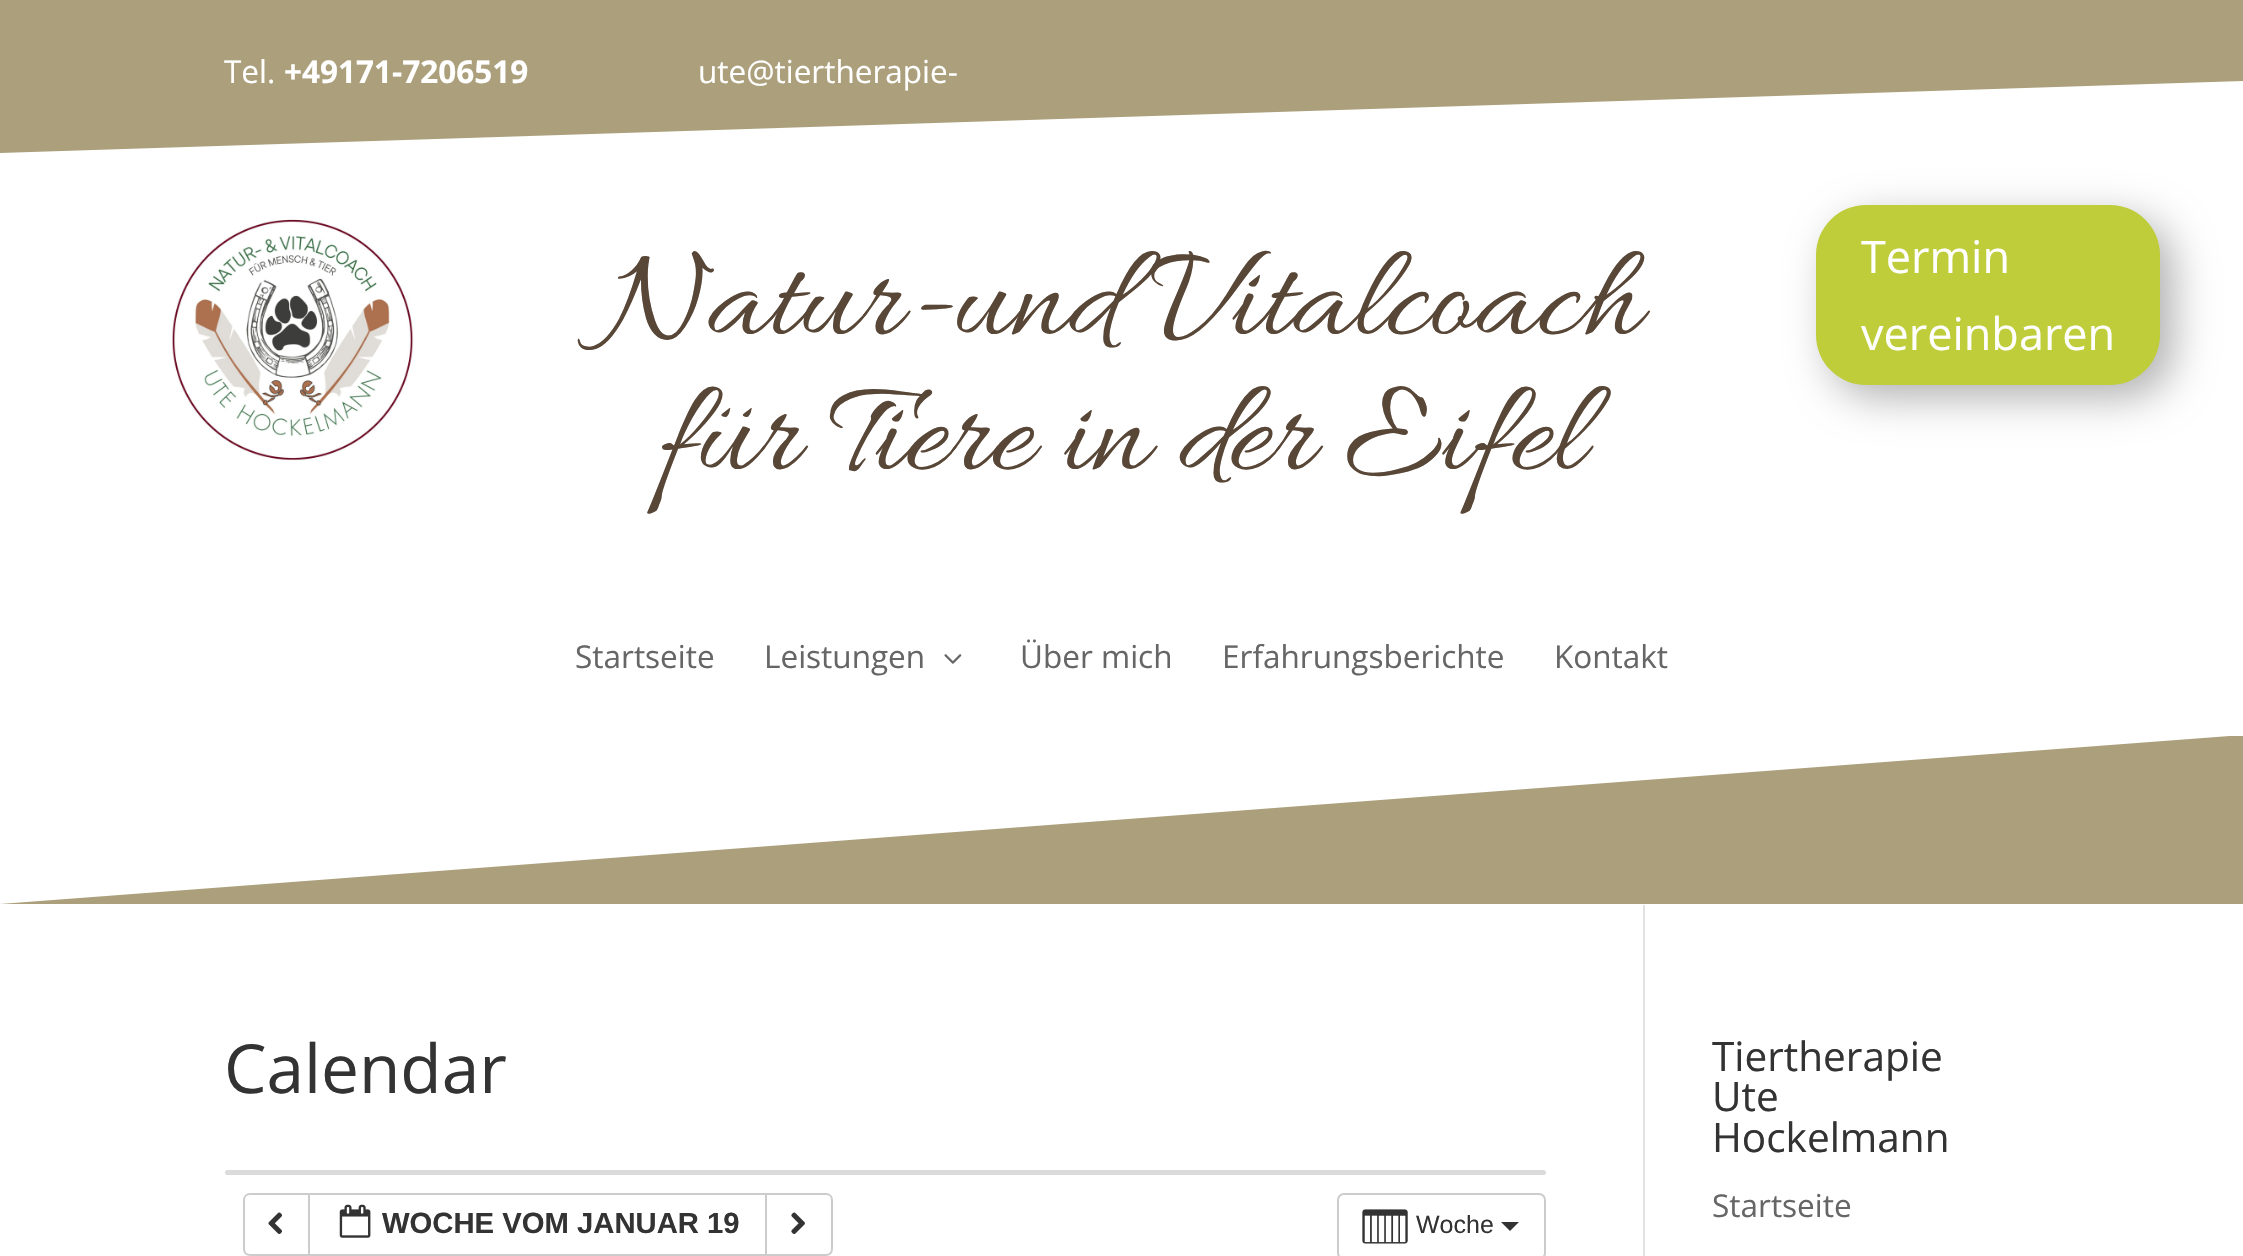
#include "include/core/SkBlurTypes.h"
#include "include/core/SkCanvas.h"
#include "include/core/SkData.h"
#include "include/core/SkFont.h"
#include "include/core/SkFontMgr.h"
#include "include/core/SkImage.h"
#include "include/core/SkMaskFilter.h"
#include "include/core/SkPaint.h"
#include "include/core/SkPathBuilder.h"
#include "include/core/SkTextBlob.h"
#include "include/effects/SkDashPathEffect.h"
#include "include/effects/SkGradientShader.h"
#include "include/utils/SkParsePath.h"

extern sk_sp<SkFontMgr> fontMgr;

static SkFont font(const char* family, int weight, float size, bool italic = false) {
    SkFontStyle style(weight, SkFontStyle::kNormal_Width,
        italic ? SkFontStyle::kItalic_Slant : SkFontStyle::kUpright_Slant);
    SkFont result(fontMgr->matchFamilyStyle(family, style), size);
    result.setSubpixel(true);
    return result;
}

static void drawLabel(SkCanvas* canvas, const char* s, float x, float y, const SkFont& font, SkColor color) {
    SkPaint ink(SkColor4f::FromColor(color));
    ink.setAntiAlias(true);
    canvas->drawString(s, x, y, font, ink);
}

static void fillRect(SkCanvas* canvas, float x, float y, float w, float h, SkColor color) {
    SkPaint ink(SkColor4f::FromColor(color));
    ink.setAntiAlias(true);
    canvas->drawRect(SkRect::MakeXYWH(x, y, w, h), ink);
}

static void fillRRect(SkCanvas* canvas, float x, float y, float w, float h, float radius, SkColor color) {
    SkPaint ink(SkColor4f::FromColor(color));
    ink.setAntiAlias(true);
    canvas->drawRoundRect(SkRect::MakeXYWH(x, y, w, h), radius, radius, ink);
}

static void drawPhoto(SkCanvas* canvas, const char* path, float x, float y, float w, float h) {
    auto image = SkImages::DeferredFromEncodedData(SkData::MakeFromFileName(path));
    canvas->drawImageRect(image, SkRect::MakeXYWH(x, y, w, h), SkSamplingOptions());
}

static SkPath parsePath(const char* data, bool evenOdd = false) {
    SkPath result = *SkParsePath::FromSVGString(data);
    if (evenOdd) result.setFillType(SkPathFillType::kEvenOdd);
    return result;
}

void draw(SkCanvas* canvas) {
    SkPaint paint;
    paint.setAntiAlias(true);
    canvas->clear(0xFFFFFFFF);
    fillRect(canvas, 0, 0, 2243, 153, 0xFFABA07B);
    SkFont font1 = font("Open Sans", 400, 31.5f);
    drawLabel(canvas, "Tel.", 224, 83, font1, 0xFFFFFFFF);
    SkFont font2 = font("Open Sans", 700, 31.5f);
    drawLabel(canvas, "+49171-7206519", 284, 83, font2, 0xFFFFFFFF);
    drawLabel(canvas, "ute@tiertherapie-", 698, 83, font1, 0xFFFFFFFF);
    paint.setColor(0xFFFFFFFF);
    canvas->drawPath(parsePath("M2243 81V153H0Z"), paint);
    drawPhoto(canvas, "assets/img1.png", 172, 219, 242, 242);
    SkFont font3 = font("Allura", 400, 135);
    drawLabel(canvas, "Natur-und Vitalcoach", 601, 331, font3, 0xFF584637);
    drawLabel(canvas, "für Tiere in der Eifel", 658, 466, font3, 0xFF584637);
    paint.setColor(0x4D000000);
    paint.setMaskFilter(SkMaskFilter::MakeBlur(kNormal_SkBlurStyle, 20));
    canvas->drawRoundRect(SkRect::MakeXYWH(1829, 218, 345, 180), 50, 50, paint);
    paint.setMaskFilter(nullptr);
    fillRRect(canvas, 1816, 205, 344, 180, 50, 0xFFBECD39);
    SkFont font4 = font("Open Sans", 400, 45);
    drawLabel(canvas, "Termin", 1861, 273, font4, 0xFFFFFFFF);
    drawLabel(canvas, "vereinbaren", 1861, 350, font4, 0xFFFFFFFF);
    drawLabel(canvas, "Startseite", 575, 668, font1, 0xFF666666);
    drawLabel(canvas, "Leistungen", 764, 668, font1, 0xFF666666);
    drawPhoto(canvas, "assets/img2.png", 944, 654, 18, 10);
    drawLabel(canvas, "Über mich", 1020, 668, font1, 0xFF666666);
    drawLabel(canvas, "Erfahrungsberichte", 1222, 668, font1, 0xFF666666);
    drawLabel(canvas, "Kontakt", 1554, 668, font1, 0xFF666666);
    canvas->save();
    canvas->clipRect(SkRect::MakeXYWH(0, 736, 2243, 169));
    paint.setColor(0xFFABA07B);
    canvas->drawPath(parsePath("M2243 735V904H0Z"), paint);
    canvas->restore();
    fillRect(canvas, 1643, 905, 2, 351, 0xFFE2E2E2);
    SkFont font5 = font("Open Sans", 400, 67.5f);
    drawLabel(canvas, "Calendar", 224, 1093, font5, 0xFF333333);
    fillRRect(canvas, 225, 1170, 1321, 5, 2.5f, 0xFFDBDBDB);
    paint.setStroke(true);
    paint.setStrokeWidth(2);
    paint.setColor(0xFFCCCCCC);
    canvas->drawPath(parsePath("M250 1194H310V1255H250C246.5 1255 244 1252.5 244 1249V1200C244 1196.5 246.5 1194 250 1194Z"), paint);
    drawPhoto(canvas, "assets/img3.png", 268, 1212, 14, 22);
    fillRect(canvas, 310, 1195, 1, 59, 0xFFFFFFFF);
    canvas->drawRect(SkRect::MakeXYWH(309, 1194, 457, 61), paint);
    drawPhoto(canvas, "assets/img4.png", 339, 1204, 32, 34);
    SkFont font6 = font("Liberation Sans", 700, 29.25f);
    drawLabel(canvas, "WOCHE VOM JANUAR 19", 382, 1233, font6, 0xFF333333);
    paint.setStroke(false);
    paint.setColor(0xFFFFFFFF);
    canvas->drawPath(parsePath("M766 1194H826C829.5 1194 832 1196.5 832 1200V1249C832 1252.5 829.5 1255 826 1255H766Z"), paint);
    paint.setStroke(true);
    paint.setColor(0xFFCCCCCC);
    canvas->drawPath(parsePath("M766 1194H826C829.5 1194 832 1196.5 832 1200V1249C832 1252.5 829.5 1255 826 1255H766Z"), paint);
    drawPhoto(canvas, "assets/img5.png", 791, 1212, 14, 22);
    canvas->drawRoundRect(SkRect::MakeXYWH(1338, 1194, 207, 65), 6, 6, paint);
    drawPhoto(canvas, "assets/img6.png", 1362, 1209, 46, 35);
    SkFont font7 = font("Liberation Sans", 400, 25);
    drawLabel(canvas, "Woche", 1416, 1233, font7, 0xFF333333);
    paint.setStroke(false);
    paint.setColor(0xFF333333);
    canvas->drawPath(parsePath("M1501 1222H1519L1510 1231Z"), paint);
    SkFont font8 = font("Open Sans", 400, 40.5f);
    drawLabel(canvas, "Tiertherapie", 1712, 1071, font8, 0xFF333333);
    drawLabel(canvas, "Ute", 1712, 1111, font8, 0xFF333333);
    drawLabel(canvas, "Hockelmann", 1712, 1152, font8, 0xFF333333);
    drawLabel(canvas, "Startseite", 1712, 1217, font1, 0xFF666666);
}
